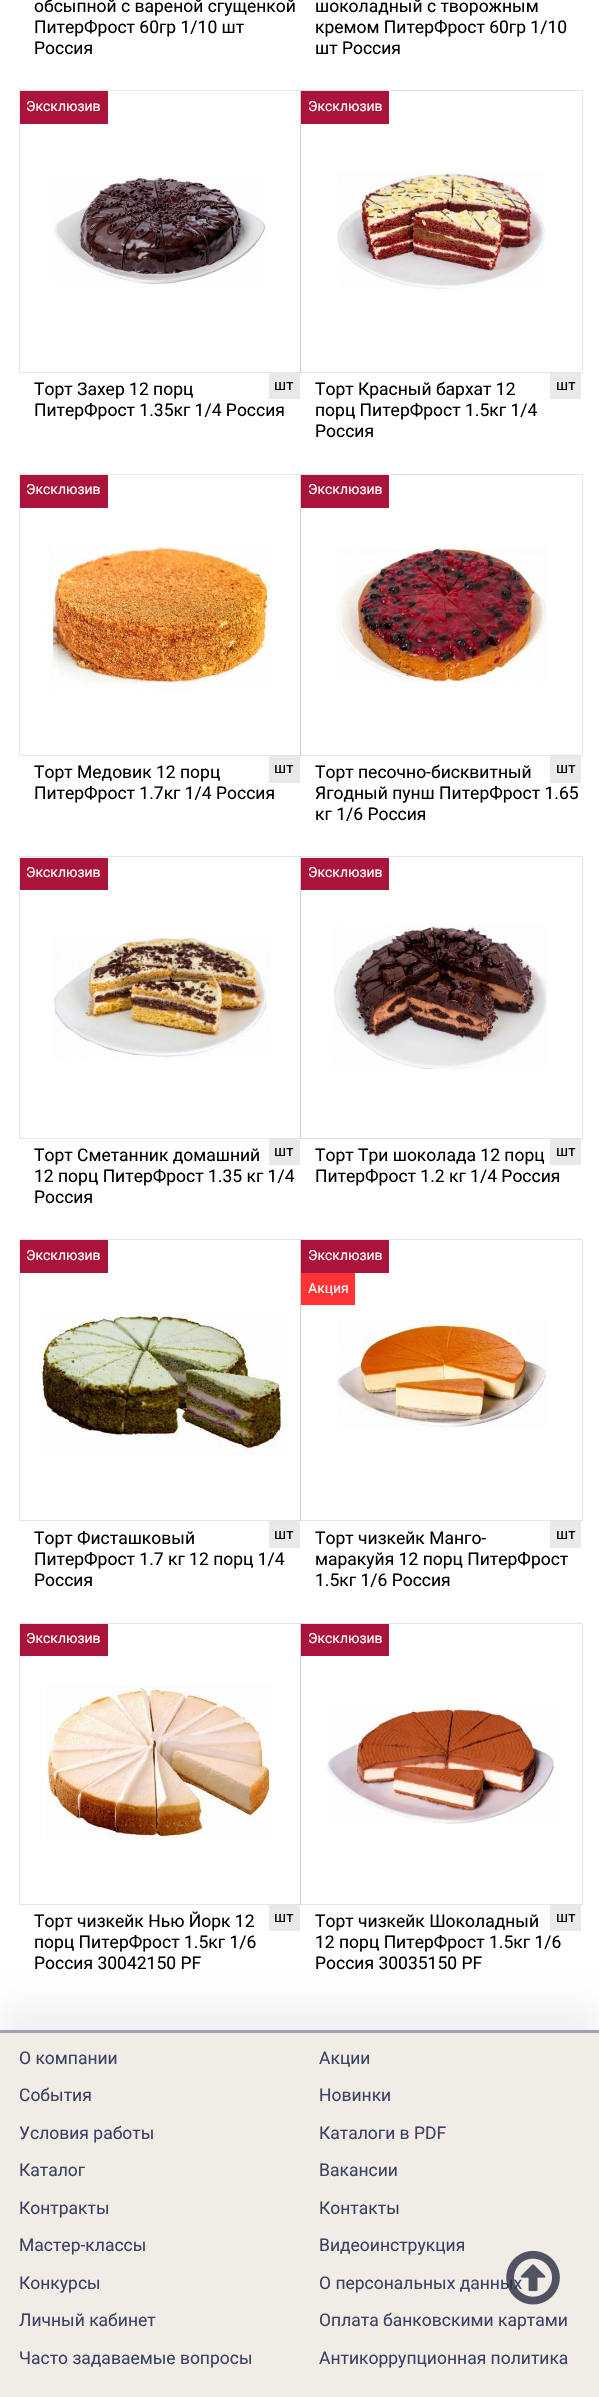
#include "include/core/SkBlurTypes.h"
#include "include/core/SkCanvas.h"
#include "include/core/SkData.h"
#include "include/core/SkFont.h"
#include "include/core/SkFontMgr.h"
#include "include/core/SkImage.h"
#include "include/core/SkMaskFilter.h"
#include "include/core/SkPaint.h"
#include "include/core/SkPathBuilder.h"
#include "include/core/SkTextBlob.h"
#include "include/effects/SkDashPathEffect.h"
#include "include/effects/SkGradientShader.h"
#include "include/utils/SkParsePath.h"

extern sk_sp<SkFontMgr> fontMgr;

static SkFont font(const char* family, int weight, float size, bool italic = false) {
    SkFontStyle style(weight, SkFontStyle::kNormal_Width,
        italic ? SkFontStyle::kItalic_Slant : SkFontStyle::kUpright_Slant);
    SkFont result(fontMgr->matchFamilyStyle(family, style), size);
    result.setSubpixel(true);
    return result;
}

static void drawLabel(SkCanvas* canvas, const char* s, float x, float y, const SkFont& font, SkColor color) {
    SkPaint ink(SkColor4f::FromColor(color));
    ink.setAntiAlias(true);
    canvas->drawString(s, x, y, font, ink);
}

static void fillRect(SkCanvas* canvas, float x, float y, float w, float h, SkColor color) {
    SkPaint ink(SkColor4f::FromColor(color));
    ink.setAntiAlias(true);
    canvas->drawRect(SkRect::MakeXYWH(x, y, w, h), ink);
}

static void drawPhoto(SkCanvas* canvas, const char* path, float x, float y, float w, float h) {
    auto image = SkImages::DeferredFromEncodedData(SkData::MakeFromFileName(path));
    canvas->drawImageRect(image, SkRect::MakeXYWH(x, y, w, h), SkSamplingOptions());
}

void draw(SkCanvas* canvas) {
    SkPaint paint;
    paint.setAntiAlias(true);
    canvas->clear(0xFFFFFFFF);
    SkFont font1 = font("Roboto", 400, 17.5f);
    drawLabel(canvas, "обсыпной с вареной сгущенкой", 34, 12, font1, 0xFF000000);
    drawLabel(canvas, "ПитерФрост 60гр 1/10 шт", 34, 33, font1, 0xFF000000);
    drawLabel(canvas, "Россия", 34, 54, font1, 0xFF000000);
    drawLabel(canvas, "шоколадный с творожным", 315, 12, font1, 0xFF000000);
    drawLabel(canvas, "кремом ПитерФрост 60гр 1/10", 315, 33, font1, 0xFF000000);
    drawLabel(canvas, "шт Россия", 315, 54, font1, 0xFF000000);
    drawPhoto(canvas, "assets/img1.png", 52, 175, 214, 110);
    paint.setStroke(true);
    paint.setStrokeWidth(1);
    paint.setColor(0xFFE6E6E6);
    canvas->drawRect(SkRect::MakeXYWH(19.5f, 90.5f, 281, 282), paint);
    fillRect(canvas, 20, 91, 88, 33, 0xFFAA143A);
    SkFont font2 = font("Roboto", 400, 14);
    drawLabel(canvas, "Эксклюзив", 26, 111, font2, 0xFFFFFFFF);
    drawLabel(canvas, "Торт Захер 12 порц", 34, 395, font1, 0xFF000000);
    drawLabel(canvas, "ПитерФрост 1.35кг 1/4 Россия", 34, 416, font1, 0xFF000000);
    fillRect(canvas, 269, 373, 31, 26, 0xFFE9E9E9);
    SkFont font3 = font("Roboto", 400, 15);
    drawLabel(canvas, "шт", 274, 390, font3, 0xFF000000);
    drawPhoto(canvas, "assets/img2.png", 337, 171, 208, 120);
    paint.setColor(0x1A000000);
    canvas->drawRect(SkRect::MakeXYWH(300.5f, 90.5f, 282, 282), paint);
    fillRect(canvas, 301, 91, 88, 33, 0xFFAA143A);
    drawLabel(canvas, "Эксклюзив", 308, 111, font2, 0xFFFFFFFF);
    drawLabel(canvas, "Торт Красный бархат 12", 315, 395, font1, 0xFF000000);
    drawLabel(canvas, "порц ПитерФрост 1.5кг 1/4", 315, 416, font1, 0xFF000000);
    drawLabel(canvas, "Россия", 315, 437, font1, 0xFF000000);
    fillRect(canvas, 550, 373, 31, 26, 0xFFE9E9E9);
    drawLabel(canvas, "шт", 556, 390, font3, 0xFF000000);
    drawPhoto(canvas, "assets/img3.png", 47, 546, 224, 144);
    paint.setColor(0xFFE6E6E6);
    canvas->drawRect(SkRect::MakeXYWH(19.5f, 474.5f, 281, 281), paint);
    fillRect(canvas, 20, 475, 88, 33, 0xFFAA143A);
    drawLabel(canvas, "Эксклюзив", 26, 494, font2, 0xFFFFFFFF);
    drawLabel(canvas, "Торт Медовик 12 порц", 34, 778, font1, 0xFF000000);
    drawLabel(canvas, "ПитерФрост 1.7кг 1/4 Россия", 34, 799, font1, 0xFF000000);
    fillRect(canvas, 269, 756, 31, 27, 0xFFE9E9E9);
    drawLabel(canvas, "шт", 274, 773, font3, 0xFF000000);
    drawPhoto(canvas, "assets/img4.png", 336, 546, 212, 136);
    paint.setColor(0x1A000000);
    canvas->drawRect(SkRect::MakeXYWH(300.5f, 474.5f, 282, 281), paint);
    fillRect(canvas, 301, 475, 88, 33, 0xFFAA143A);
    drawLabel(canvas, "Эксклюзив", 308, 494, font2, 0xFFFFFFFF);
    drawLabel(canvas, "Торт песочно-бисквитный", 315, 778, font1, 0xFF000000);
    drawLabel(canvas, "Ягодный пунш ПитерФрост 1.65", 315, 799, font1, 0xFF000000);
    drawLabel(canvas, "кг 1/6 Россия", 315, 820, font1, 0xFF000000);
    fillRect(canvas, 550, 756, 31, 27, 0xFFE9E9E9);
    drawLabel(canvas, "шт", 556, 773, font3, 0xFF000000);
    drawPhoto(canvas, "assets/img5.png", 52, 937, 219, 122);
    paint.setColor(0xFFE6E6E6);
    canvas->drawRect(SkRect::MakeXYWH(19.5f, 856.5f, 281, 282), paint);
    fillRect(canvas, 20, 858, 88, 32, 0xFFAA143A);
    drawLabel(canvas, "Эксклюзив", 26, 877, font2, 0xFFFFFFFF);
    drawLabel(canvas, "Торт Сметанник домашний", 34, 1161, font1, 0xFF000000);
    drawLabel(canvas, "12 порц ПитерФрост 1.35 кг 1/4", 34, 1182, font1, 0xFF000000);
    drawLabel(canvas, "Россия", 34, 1203, font1, 0xFF000000);
    fillRect(canvas, 269, 1139, 31, 26, 0xFFE9E9E9);
    drawLabel(canvas, "шт", 274, 1156, font3, 0xFF000000);
    drawPhoto(canvas, "assets/img6.png", 333, 925, 215, 145);
    paint.setColor(0x1A000000);
    canvas->drawRect(SkRect::MakeXYWH(300.5f, 856.5f, 282, 282), paint);
    fillRect(canvas, 301, 858, 88, 32, 0xFFAA143A);
    drawLabel(canvas, "Эксклюзив", 308, 877, font2, 0xFFFFFFFF);
    drawLabel(canvas, "Торт Три шоколада 12 порц", 315, 1161, font1, 0xFF000000);
    drawLabel(canvas, "ПитерФрост 1.2 кг 1/4 Россия", 315, 1182, font1, 0xFF000000);
    fillRect(canvas, 550, 1139, 31, 26, 0xFFE9E9E9);
    drawLabel(canvas, "шт", 556, 1156, font3, 0xFF000000);
    drawPhoto(canvas, "assets/img7.png", 38, 1311, 251, 144);
    paint.setColor(0xFFE6E6E6);
    canvas->drawRect(SkRect::MakeXYWH(19.5f, 1239.5f, 281, 281), paint);
    fillRect(canvas, 20, 1240, 88, 33, 0xFFAA143A);
    drawLabel(canvas, "Эксклюзив", 26, 1260, font2, 0xFFFFFFFF);
    drawLabel(canvas, "Торт Фисташковый", 34, 1544, font1, 0xFF000000);
    drawLabel(canvas, "ПитерФрост 1.7 кг 12 порц 1/4", 34, 1565, font1, 0xFF000000);
    drawLabel(canvas, "Россия", 34, 1586, font1, 0xFF000000);
    fillRect(canvas, 269, 1521, 31, 27, 0xFFE9E9E9);
    drawLabel(canvas, "шт", 274, 1539, font3, 0xFF000000);
    drawPhoto(canvas, "assets/img8.png", 337, 1320, 211, 108);
    paint.setColor(0x1A000000);
    canvas->drawRect(SkRect::MakeXYWH(300.5f, 1239.5f, 282, 281), paint);
    fillRect(canvas, 301, 1240, 88, 33, 0xFFAA143A);
    drawLabel(canvas, "Эксклюзив", 308, 1260, font2, 0xFFFFFFFF);
    fillRect(canvas, 301, 1273, 54, 32, 0xFFFF3333);
    drawLabel(canvas, "Акция", 308, 1293, font2, 0xFFFFFFFF);
    drawLabel(canvas, "Торт чизкейк Манго-", 315, 1544, font1, 0xFF000000);
    drawLabel(canvas, "маракуйя 12 порц ПитерФрост", 315, 1565, font1, 0xFF000000);
    drawLabel(canvas, "1.5кг 1/6 Россия", 315, 1586, font1, 0xFF000000);
    fillRect(canvas, 550, 1521, 31, 27, 0xFFE9E9E9);
    drawLabel(canvas, "шт", 556, 1539, font3, 0xFF000000);
    drawPhoto(canvas, "assets/img9.png", 46, 1686, 226, 153);
    paint.setColor(0xFFE6E6E6);
    canvas->drawRect(SkRect::MakeXYWH(19.5f, 1623.5f, 281, 281), paint);
    fillRect(canvas, 20, 1624, 88, 32, 0xFFAA143A);
    drawLabel(canvas, "Эксклюзив", 26, 1643, font2, 0xFFFFFFFF);
    drawLabel(canvas, "Торт чизкейк Нью Йорк 12", 34, 1927, font1, 0xFF000000);
    drawLabel(canvas, "порц ПитерФрост 1.5кг 1/6", 34, 1948, font1, 0xFF000000);
    drawLabel(canvas, "Россия 30042150 PF", 34, 1969, font1, 0xFF000000);
    fillRect(canvas, 269, 1905, 31, 26, 0xFFE9E9E9);
    drawLabel(canvas, "шт", 274, 1922, font3, 0xFF000000);
    drawPhoto(canvas, "assets/img10.png", 327, 1704, 228, 120);
    paint.setColor(0x1A000000);
    canvas->drawRect(SkRect::MakeXYWH(300.5f, 1623.5f, 282, 281), paint);
    fillRect(canvas, 301, 1624, 88, 32, 0xFFAA143A);
    drawLabel(canvas, "Эксклюзив", 308, 1643, font2, 0xFFFFFFFF);
    drawLabel(canvas, "Торт чизкейк Шоколадный", 315, 1927, font1, 0xFF000000);
    drawLabel(canvas, "12 порц ПитерФрост 1.5кг 1/6", 315, 1948, font1, 0xFF000000);
    drawLabel(canvas, "Россия 30035150 PF", 315, 1969, font1, 0xFF000000);
    fillRect(canvas, 550, 1905, 31, 26, 0xFFE9E9E9);
    drawLabel(canvas, "шт", 556, 1922, font3, 0xFF000000);
    paint.setStroke(false);
    paint.setColor(0x0D000000);
    paint.setMaskFilter(SkMaskFilter::MakeBlur(kNormal_SkBlurStyle, 12.5f));
    canvas->drawRect(SkRect::MakeXYWH(0, 2005, 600, 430), paint);
    paint.setMaskFilter(nullptr);
    fillRect(canvas, 0, 2033, 599, 364, 0xFFF2ECE6);
    fillRect(canvas, 0, 2030, 599, 3, 0xFFA2A1B3);
    drawLabel(canvas, "О компании", 19, 2064, font1, 0xFF3B4161);
    drawLabel(canvas, "Акции", 319, 2064, font1, 0xFF3B4161);
    drawLabel(canvas, "События", 19, 2101, font1, 0xFF3B4161);
    drawLabel(canvas, "Новинки", 319, 2101, font1, 0xFF3B4161);
    drawLabel(canvas, "Условия работы", 19, 2139, font1, 0xFF3B4161);
    drawLabel(canvas, "Каталоги в PDF", 319, 2139, font1, 0xFF3B4161);
    drawLabel(canvas, "Каталог", 19, 2176, font1, 0xFF3B4161);
    drawLabel(canvas, "Вакансии", 319, 2176, font1, 0xFF3B4161);
    drawLabel(canvas, "Контракты", 19, 2214, font1, 0xFF3B4161);
    drawLabel(canvas, "Контакты", 319, 2214, font1, 0xFF3B4161);
    drawLabel(canvas, "Мастер-классы", 19, 2251, font1, 0xFF3B4161);
    drawLabel(canvas, "Видеоинструкция", 319, 2251, font1, 0xFF3B4161);
    drawLabel(canvas, "Конкурсы", 19, 2289, font1, 0xFF3B4161);
    drawLabel(canvas, "О персональных данных", 319, 2289, font1, 0xFF3B4161);
    drawLabel(canvas, "Личный кабинет", 19, 2326, font1, 0xFF3B4161);
    drawLabel(canvas, "Оплата банковскими картами", 319, 2326, font1, 0xFF3B4161);
    drawLabel(canvas, "Часто задаваемые вопросы", 19, 2364, font1, 0xFF3B4161);
    drawLabel(canvas, "Антикоррупционная политика", 319, 2364, font1, 0xFF3B4161);
    drawPhoto(canvas, "assets/img11.png", 506, 2250, 54, 55);
}
